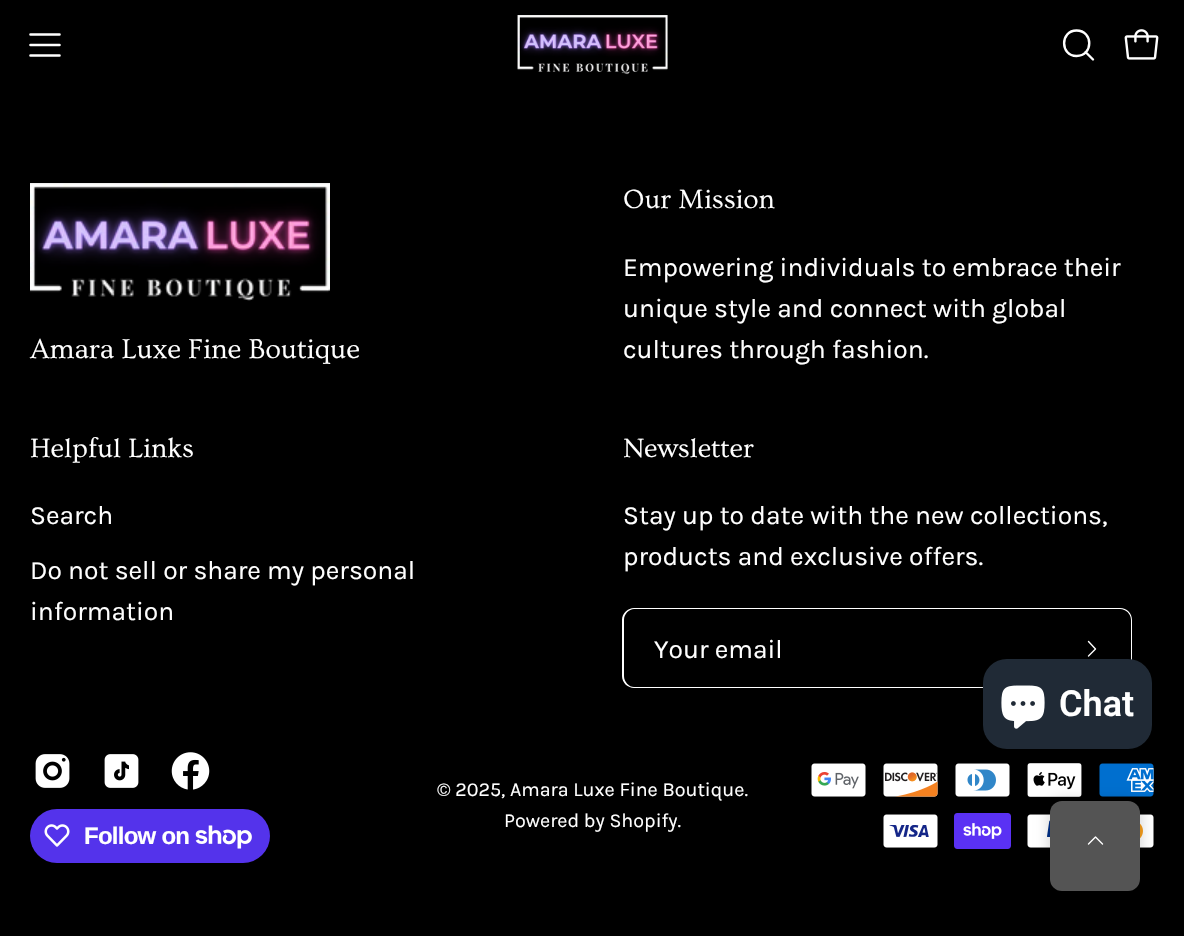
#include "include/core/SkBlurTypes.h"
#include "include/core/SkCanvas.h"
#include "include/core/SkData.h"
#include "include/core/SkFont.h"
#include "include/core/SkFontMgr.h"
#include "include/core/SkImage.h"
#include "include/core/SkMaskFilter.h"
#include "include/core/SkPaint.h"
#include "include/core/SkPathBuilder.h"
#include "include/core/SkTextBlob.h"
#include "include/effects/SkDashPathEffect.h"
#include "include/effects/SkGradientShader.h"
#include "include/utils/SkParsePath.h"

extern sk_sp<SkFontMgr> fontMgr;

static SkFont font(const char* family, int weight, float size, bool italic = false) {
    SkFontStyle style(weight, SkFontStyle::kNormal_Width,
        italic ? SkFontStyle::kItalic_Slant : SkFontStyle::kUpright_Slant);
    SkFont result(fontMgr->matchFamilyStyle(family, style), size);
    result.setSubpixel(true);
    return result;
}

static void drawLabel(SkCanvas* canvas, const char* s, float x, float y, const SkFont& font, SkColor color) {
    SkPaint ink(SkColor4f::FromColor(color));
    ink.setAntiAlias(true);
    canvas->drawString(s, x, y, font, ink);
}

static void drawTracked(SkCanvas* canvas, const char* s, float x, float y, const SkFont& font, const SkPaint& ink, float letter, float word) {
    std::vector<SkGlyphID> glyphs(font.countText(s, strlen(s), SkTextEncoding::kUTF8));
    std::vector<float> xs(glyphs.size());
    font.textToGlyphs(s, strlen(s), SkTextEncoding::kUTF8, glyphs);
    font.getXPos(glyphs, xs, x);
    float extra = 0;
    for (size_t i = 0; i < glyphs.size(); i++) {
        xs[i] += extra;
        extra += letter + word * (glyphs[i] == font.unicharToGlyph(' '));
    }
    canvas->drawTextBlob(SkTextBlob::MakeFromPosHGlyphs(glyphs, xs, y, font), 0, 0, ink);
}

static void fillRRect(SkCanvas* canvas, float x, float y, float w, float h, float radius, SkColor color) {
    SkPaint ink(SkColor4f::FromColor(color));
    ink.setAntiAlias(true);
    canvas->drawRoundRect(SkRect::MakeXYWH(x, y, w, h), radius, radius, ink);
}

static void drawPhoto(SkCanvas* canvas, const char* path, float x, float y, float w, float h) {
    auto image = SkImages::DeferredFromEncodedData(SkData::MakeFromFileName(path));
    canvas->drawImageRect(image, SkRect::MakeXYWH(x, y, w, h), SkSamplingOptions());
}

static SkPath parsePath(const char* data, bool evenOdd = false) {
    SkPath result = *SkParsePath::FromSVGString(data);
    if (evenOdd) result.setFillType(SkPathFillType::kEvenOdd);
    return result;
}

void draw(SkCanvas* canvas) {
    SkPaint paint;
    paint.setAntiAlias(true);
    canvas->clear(0xFF000000);
    paint.setStroke(true);
    paint.setStrokeWidth(2.6f);
    paint.setStrokeCap(SkPaint::kRound_Cap);
    paint.setStrokeJoin(SkPaint::kRound_Join);
    paint.setColor(0xFFFFFFFF);
    canvas->drawPath(parsePath("M30.5 45H59.5M30.5 34.5H59.5M30.5 55.5H59.5"), paint);
    drawPhoto(canvas, "assets/img1.png", 517, 15, 151, 60);
    paint.setStrokeWidth(2.4f);
    canvas->drawPath(parsePath("M1076.5 56C1093.5 56 1093.5 30.5 1076.5 30.5C1060 30.5 1060 56 1076.5 56ZM1085.5 52L1093 59.5"), paint);
    drawPhoto(canvas, "assets/img2.png", 1124, 29, 35, 31);
    drawPhoto(canvas, "assets/img3.png", 30, 183, 300, 118);
    SkFont font1 = font("Ovo", 400, 28.4f);
    drawLabel(canvas, "Amara Luxe Fine Boutique", 30, 358, font1, 0xFFFFFFFF);
    SkFont font2 = font("Ovo", 400, 27.75f);
    drawLabel(canvas, "Our Mission", 623, 208, font2, 0xFFFFFFFF);
    SkFont font3 = font("Karla", 400, 26.4f);
    drawLabel(canvas, "Empowering individuals to embrace their", 623, 276, font3, 0xFFFFFFFF);
    drawLabel(canvas, "unique style and connect with global", 623, 317, font3, 0xFFFFFFFF);
    drawLabel(canvas, "cultures through fashion.", 623, 358, font3, 0xFFFFFFFF);
    drawLabel(canvas, "Helpful Links", 30, 457, font2, 0xFFFFFFFF);
    drawLabel(canvas, "Search", 30, 524, font3, 0xFFFFFFFF);
    drawLabel(canvas, "Do not sell or share my personal", 30, 579, font3, 0xFFFFFFFF);
    drawLabel(canvas, "information", 30, 620, font3, 0xFFFFFFFF);
    drawLabel(canvas, "Newsletter", 623, 457, font2, 0xFFFFFFFF);
    drawLabel(canvas, "Stay up to date with the new collections,", 623, 524, font3, 0xFFFFFFFF);
    drawLabel(canvas, "products and exclusive offers.", 623, 565, font3, 0xFFFFFFFF);
    paint.setStroke(false);
    canvas->drawPath(parsePath("M634 608H1052V688H634C628 688 622 683 622 676V620C622 613 628 608 634 608ZM634 609H1052V687H634C629 687 624 682 624 676V620C624 614 629 609 634 609Z", true), paint);
    drawLabel(canvas, "Your email", 654, 658, font3, 0xFFFFFFFF);
    canvas->drawPath(parsePath("M1052 608H1120C1127 608 1132 613 1132 620V676C1132 683 1127 688 1120 688H1052ZM1052 609H1120C1126 609 1131 614 1131 620V676C1131 682 1126 687 1120 687H1052Z", true), paint);
    paint.setStroke(true);
    paint.setStrokeWidth(1.4f);
    canvas->drawPath(parsePath("M1088.5 641.5L1095.5 649L1088.5 656"), paint);
    SkFont font4 = font("Karla", 400, 19.75f);
    drawLabel(canvas, "© 2025, Amara Luxe Fine Boutique.", 437, 796, font4, 0xFFFFFFFF);
    drawLabel(canvas, "Powered by Shopify.", 504, 827, font4, 0xFFFFFFFF);
    drawPhoto(canvas, "assets/img4.png", 811, 763, 55, 34);
    drawPhoto(canvas, "assets/img5.png", 883, 763, 55, 34);
    drawPhoto(canvas, "assets/img6.png", 955, 763, 55, 34);
    drawPhoto(canvas, "assets/img7.png", 1027, 763, 55, 34);
    drawPhoto(canvas, "assets/img8.png", 1099, 763, 55, 34);
    drawPhoto(canvas, "assets/img9.png", 883, 814, 55, 34);
    drawPhoto(canvas, "assets/img10.png", 954, 813, 57, 36);
    drawPhoto(canvas, "assets/img11.png", 1027, 814, 23, 34);
    drawPhoto(canvas, "assets/img12.png", 1140, 814, 14, 34);
    drawPhoto(canvas, "assets/img13.png", 35, 754, 35, 34);
    drawPhoto(canvas, "assets/img14.png", 104, 754, 35, 34);
    drawPhoto(canvas, "assets/img15.png", 171, 752, 39, 38);
    fillRRect(canvas, 30, 809, 240, 54, 27, 0xFF5433EB);
    drawPhoto(canvas, "assets/img16.png", 44, 824, 26, 23);
    SkFont font5 = font("Liberation Sans", 700, 24);
    paint.setStroke(false);
    drawTracked(canvas, "Follow on", 84, 844, font5, paint, -0.75f, 0);
    drawPhoto(canvas, "assets/img17.png", 195, 825, 57, 24);
    paint.setColor(0x26000000);
    paint.setMaskFilter(SkMaskFilter::MakeBlur(kNormal_SkBlurStyle, 4));
    canvas->drawRoundRect(SkRect::MakeXYWH(983, 659, 169, 90), 24, 24, paint);
    paint.setMaskFilter(nullptr);
    fillRRect(canvas, 983, 659, 169, 90, 24, 0xFF202A36);
    drawPhoto(canvas, "assets/img18.png", 1001, 685, 44, 44);
    SkFont font6 = font("Roboto", 600, 36);
    drawLabel(canvas, "Chat", 1059, 716, font6, 0xFFFFFFFF);
    paint.setColor(0x33000000);
    paint.setMaskFilter(SkMaskFilter::MakeBlur(kNormal_SkBlurStyle, 7.5f));
    canvas->drawRoundRect(SkRect::MakeXYWH(1050, 801, 90, 90), 12, 12, paint);
    paint.setMaskFilter(nullptr);
    fillRRect(canvas, 1050, 801, 90, 90, 12, 0xFF545454);
    paint.setStroke(true);
    paint.setColor(0xFFFFFFFF);
    canvas->drawPath(parsePath("M1088.5 844L1095.5 837L1102.5 844"), paint);
}
